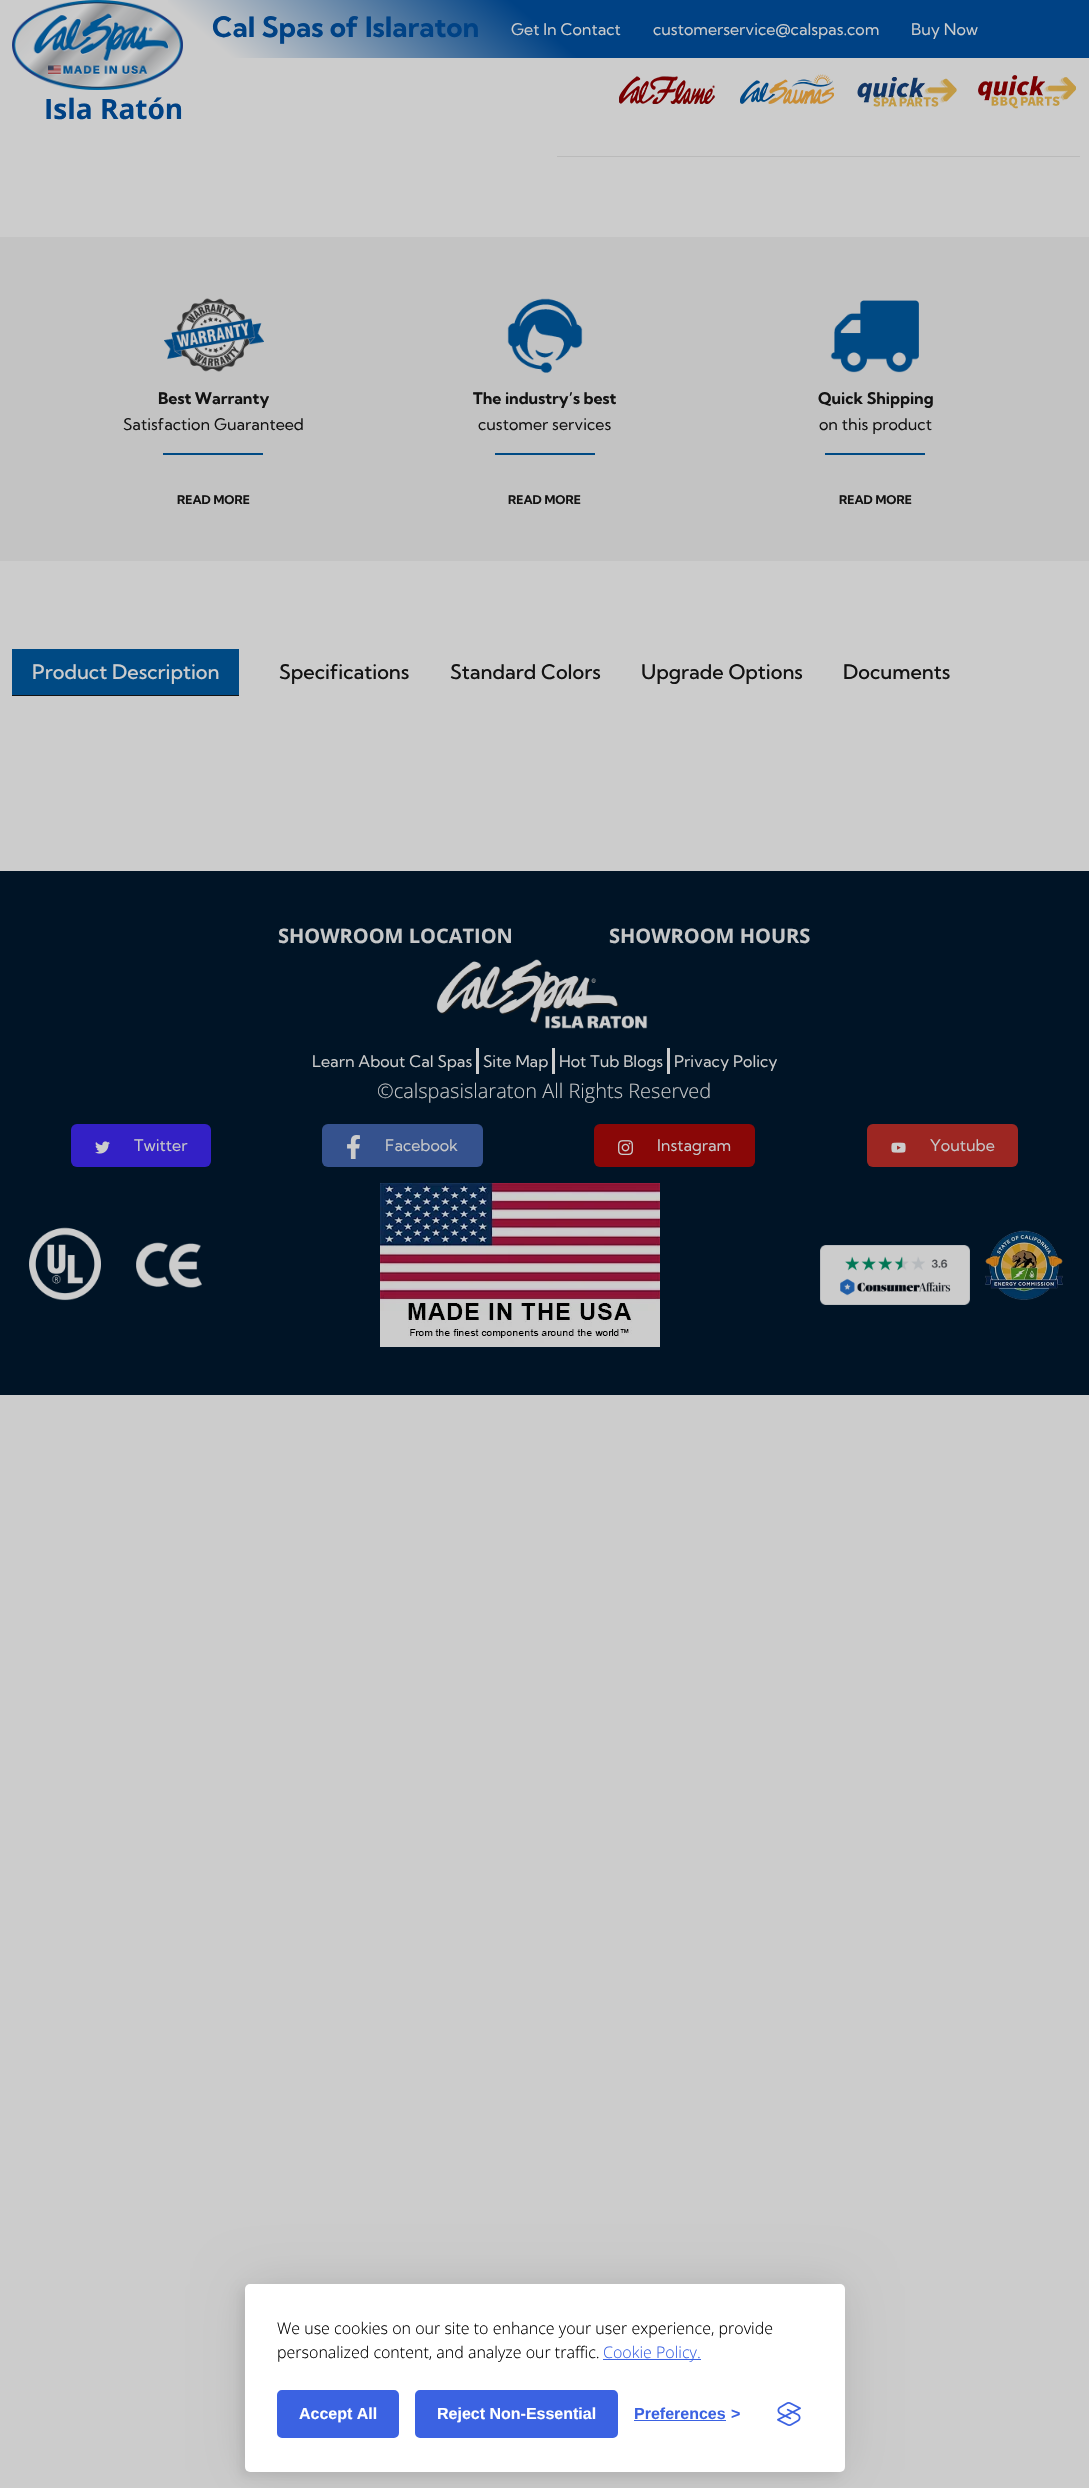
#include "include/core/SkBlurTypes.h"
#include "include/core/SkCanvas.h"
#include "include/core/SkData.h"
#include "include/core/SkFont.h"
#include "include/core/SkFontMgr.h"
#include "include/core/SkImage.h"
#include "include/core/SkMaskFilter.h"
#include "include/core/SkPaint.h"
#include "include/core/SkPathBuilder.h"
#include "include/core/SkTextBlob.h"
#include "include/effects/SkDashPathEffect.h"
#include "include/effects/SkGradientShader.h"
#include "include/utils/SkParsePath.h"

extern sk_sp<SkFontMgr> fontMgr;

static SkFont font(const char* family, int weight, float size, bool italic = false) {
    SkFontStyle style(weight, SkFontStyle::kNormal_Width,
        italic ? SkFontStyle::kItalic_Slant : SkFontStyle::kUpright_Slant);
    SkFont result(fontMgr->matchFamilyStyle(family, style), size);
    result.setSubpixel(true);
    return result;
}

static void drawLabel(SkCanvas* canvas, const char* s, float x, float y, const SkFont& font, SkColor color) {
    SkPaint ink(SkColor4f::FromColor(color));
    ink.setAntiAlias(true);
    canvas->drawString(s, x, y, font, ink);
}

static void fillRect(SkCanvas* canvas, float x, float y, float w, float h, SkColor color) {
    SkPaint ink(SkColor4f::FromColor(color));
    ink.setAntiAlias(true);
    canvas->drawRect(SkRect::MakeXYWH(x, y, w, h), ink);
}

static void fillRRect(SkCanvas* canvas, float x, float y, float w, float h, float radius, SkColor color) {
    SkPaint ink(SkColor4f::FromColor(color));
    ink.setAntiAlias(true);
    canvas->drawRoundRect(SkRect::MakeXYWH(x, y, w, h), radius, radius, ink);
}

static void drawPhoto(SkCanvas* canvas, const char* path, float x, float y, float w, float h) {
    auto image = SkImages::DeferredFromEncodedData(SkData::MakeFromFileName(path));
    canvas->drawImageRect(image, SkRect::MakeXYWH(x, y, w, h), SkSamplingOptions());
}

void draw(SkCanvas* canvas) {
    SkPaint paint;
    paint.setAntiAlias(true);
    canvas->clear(0xFFCCCCCC);
    {
        const SkColor colors[] = {0xFFCCCCCC, 0xFF004285};
        const float stops[] = {0.2f, 0.5f};
        const SkPoint ends[] = {{305, 314}, {784, -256}};
        paint.setShader(SkGradientShader::MakeLinear(ends, colors, stops, 2, SkTileMode::kClamp));
        paint.setAlpha(255);
    }
    canvas->drawRect(SkRect::MakeXYWH(168, 0, 921, 58), paint);
    drawPhoto(canvas, "assets/img1.png", 12, 0, 171, 90);
    SkFont font1 = font("Kumbh Sans", 700, 28);
    drawLabel(canvas, "Cal Spas of Islaraton", 212, 37, font1, 0xFF004285);
    SkFont font2 = font("Kumbh Sans", 400, 16);
    drawLabel(canvas, "Get In Contact", 511, 35, font2, 0xFFCCCCCC);
    drawLabel(canvas, "customerservice@calspas.com", 653, 35, font2, 0xFFCCCCCC);
    drawLabel(canvas, "Buy Now", 911, 35, font2, 0xFFCCCCCC);
    SkFont font3 = font("Open Sans", 700, 28);
    drawLabel(canvas, "Isla Ratón", 44, 119, font3, 0xFF004285);
    drawPhoto(canvas, "assets/img2.png", 619, 76, 96, 28);
    drawPhoto(canvas, "assets/img3.png", 740, 74, 94, 30);
    drawPhoto(canvas, "assets/img4.png", 857, 77, 100, 30);
    drawPhoto(canvas, "assets/img5.png", 978, 75, 98, 34);
    fillRect(canvas, 557, 156, 523, 1, 0xFFBABABA);
    fillRect(canvas, 0, 237, 1089, 324, 0xFFC3C3C3);
    drawPhoto(canvas, "assets/img6.png", 164, 298, 100, 74);
    SkFont font4 = font("Kumbh Sans", 700, 16);
    drawLabel(canvas, "Best Warranty", 158, 404, font4, 0xFF131313);
    drawLabel(canvas, "Satisfaction Guaranteed", 123, 430, font2, 0xFF131313);
    fillRect(canvas, 163, 453, 100, 2, 0xFF004A84);
    SkFont font5 = font("Kumbh Sans", 700, 12);
    drawLabel(canvas, "READ MORE", 177, 504, font5, 0xFF131313);
    drawPhoto(canvas, "assets/img7.png", 507, 298, 76, 75);
    drawLabel(canvas, "The industry’s best", 473, 404, font4, 0xFF131313);
    drawLabel(canvas, "customer services", 478, 430, font2, 0xFF131313);
    fillRect(canvas, 495, 453, 100, 2, 0xFF004A84);
    drawLabel(canvas, "READ MORE", 508, 504, font5, 0xFF131313);
    drawPhoto(canvas, "assets/img8.png", 830, 300, 89, 73);
    drawLabel(canvas, "Quick Shipping", 818, 404, font4, 0xFF131313);
    drawLabel(canvas, "on this product", 819, 430, font2, 0xFF131313);
    fillRect(canvas, 825, 453, 100, 2, 0xFF004A84);
    drawLabel(canvas, "READ MORE", 839, 504, font5, 0xFF131313);
    fillRect(canvas, 12, 649, 227, 46, 0xFF004A84);
    SkFont font6 = font("Kumbh Sans", 500, 20);
    drawLabel(canvas, "Product Description", 32, 679, font6, 0xFFCCCCCC);
    fillRect(canvas, 12, 695, 227, 1, 0xFF131313);
    drawLabel(canvas, "Specifications", 279, 679, font6, 0xFF131313);
    drawLabel(canvas, "Standard Colors", 450, 679, font6, 0xFF131313);
    drawLabel(canvas, "Upgrade Options", 641, 679, font6, 0xFF131313);
    drawLabel(canvas, "Documents", 843, 679, font6, 0xFF131313);
    fillRect(canvas, 0, 871, 1089, 524, 0xFF001426);
    SkFont font7 = font("Open Sans", 700, 20);
    drawLabel(canvas, "SHOWROOM LOCATION", 278, 943, font7, 0xFFC6C7C8);
    drawLabel(canvas, "SHOWROOM HOURS", 609, 943, font7, 0xFFC6C7C8);
    drawPhoto(canvas, "assets/img9.png", 436, 959, 212, 70);
    fillRect(canvas, 476, 1048, 3, 26, 0xFFCCCCCC);
    drawLabel(canvas, "Learn About Cal Spas", 312, 1067, font2, 0xFFCCCCCC);
    fillRect(canvas, 552, 1048, 3, 26, 0xFFCCCCCC);
    drawLabel(canvas, "Site Map", 483, 1067, font2, 0xFFCCCCCC);
    fillRect(canvas, 667, 1048, 3, 26, 0xFFCCCCCC);
    drawLabel(canvas, "Hot Tub Blogs", 559, 1067, font2, 0xFFCCCCCC);
    drawLabel(canvas, "Privacy Policy", 674, 1067, font2, 0xFFCCCCCC);
    SkFont font8 = font("Open Sans", 300, 20);
    drawLabel(canvas, "©calspasislaraton All Rights Reserved", 377, 1098, font8, 0xFFC6C7C8);
    fillRRect(canvas, 71, 1124, 140, 43, 6, 0xFF3320C6);
    drawPhoto(canvas, "assets/img10.png", 95, 1141, 15, 13);
    drawLabel(canvas, "Twitter", 134, 1151, font2, 0xFFC6C7C8);
    fillRRect(canvas, 322, 1124, 161, 43, 6, 0xFF35528E);
    drawPhoto(canvas, "assets/img11.png", 347, 1135, 13, 24);
    drawLabel(canvas, "Facebook", 385, 1151, font2, 0xFFC6C7C8);
    fillRRect(canvas, 594, 1124, 161, 43, 6, 0xFF8A0707);
    drawPhoto(canvas, "assets/img12.png", 618, 1140, 15, 15);
    drawLabel(canvas, "Instagram", 657, 1151, font2, 0xFFC6C7C8);
    fillRRect(canvas, 867, 1124, 151, 43, 6, 0xFF9D2622);
    drawPhoto(canvas, "assets/img13.png", 891, 1142, 15, 11);
    drawLabel(canvas, "Youtube", 930, 1151, font2, 0xFFC6C7C8);
    drawPhoto(canvas, "assets/img14.png", 29, 1227, 72, 74);
    drawPhoto(canvas, "assets/img15.png", 136, 1242, 66, 46);
    drawPhoto(canvas, "assets/img16.png", 380, 1183, 280, 164);
    drawPhoto(canvas, "assets/img17.png", 820, 1245, 150, 60);
    drawPhoto(canvas, "assets/img18.png", 985, 1230, 78, 70);
    paint.setShader(nullptr);
    paint.setColor(0x1A000000);
    paint.setMaskFilter(SkMaskFilter::MakeBlur(kNormal_SkBlurStyle, 25));
    canvas->drawRoundRect(SkRect::MakeXYWH(245, 2284, 600, 188), 5, 5, paint);
    paint.setMaskFilter(nullptr);
    paint.setColor(0x12000000);
    paint.setMaskFilter(SkMaskFilter::MakeBlur(kNormal_SkBlurStyle, 5));
    canvas->drawRoundRect(SkRect::MakeXYWH(240, 2289, 600, 188), 5, 5, paint);
    paint.setMaskFilter(nullptr);
    fillRRect(canvas, 245, 2284, 600, 188, 5, 0xFFFFFFFF);
    SkFont font9 = font("Open Sans", 300, 16);
    drawLabel(canvas, "We use cookies on our site to enhance your user experience, provide", 277, 2334, font9, 0xFF000000);
    drawLabel(canvas, "personalized content, and analyze our traffic.", 277, 2358, font9, 0xFF000000);
    fillRect(canvas, 603, 2359, 98, 1, 0xFF3B62E2);
    drawLabel(canvas, "Cookie Policy.", 603, 2358, font9, 0xFF3B62E2);
    paint.setColor(0xFF3B62E2);
    canvas->drawRoundRect(SkRect::MakeXYWH(278, 2391, 120, 46), 4, 4, paint);
    paint.setStroke(true);
    paint.setStrokeWidth(2);
    canvas->drawRoundRect(SkRect::MakeXYWH(278, 2391, 120, 46), 4, 4, paint);
    SkFont font10 = font("Liberation Sans", 700, 16);
    drawLabel(canvas, "Accept All", 299, 2419, font10, 0xFFFFFFFF);
    paint.setStroke(false);
    canvas->drawRoundRect(SkRect::MakeXYWH(416, 2391, 201, 46), 4, 4, paint);
    paint.setStroke(true);
    canvas->drawRoundRect(SkRect::MakeXYWH(416, 2391, 201, 46), 4, 4, paint);
    drawLabel(canvas, "Reject Non-Essential", 437, 2419, font10, 0xFFFFFFFF);
    drawLabel(canvas, "Preferences", 634, 2419, font10, 0xFF3B62E2);
    fillRect(canvas, 634, 2420, 92, 1, 0xFF3B62E2);
    drawLabel(canvas, ">", 731, 2419, font10, 0xFF3B62E2);
    drawPhoto(canvas, "assets/img19.png", 777, 2402, 24, 24);
}
